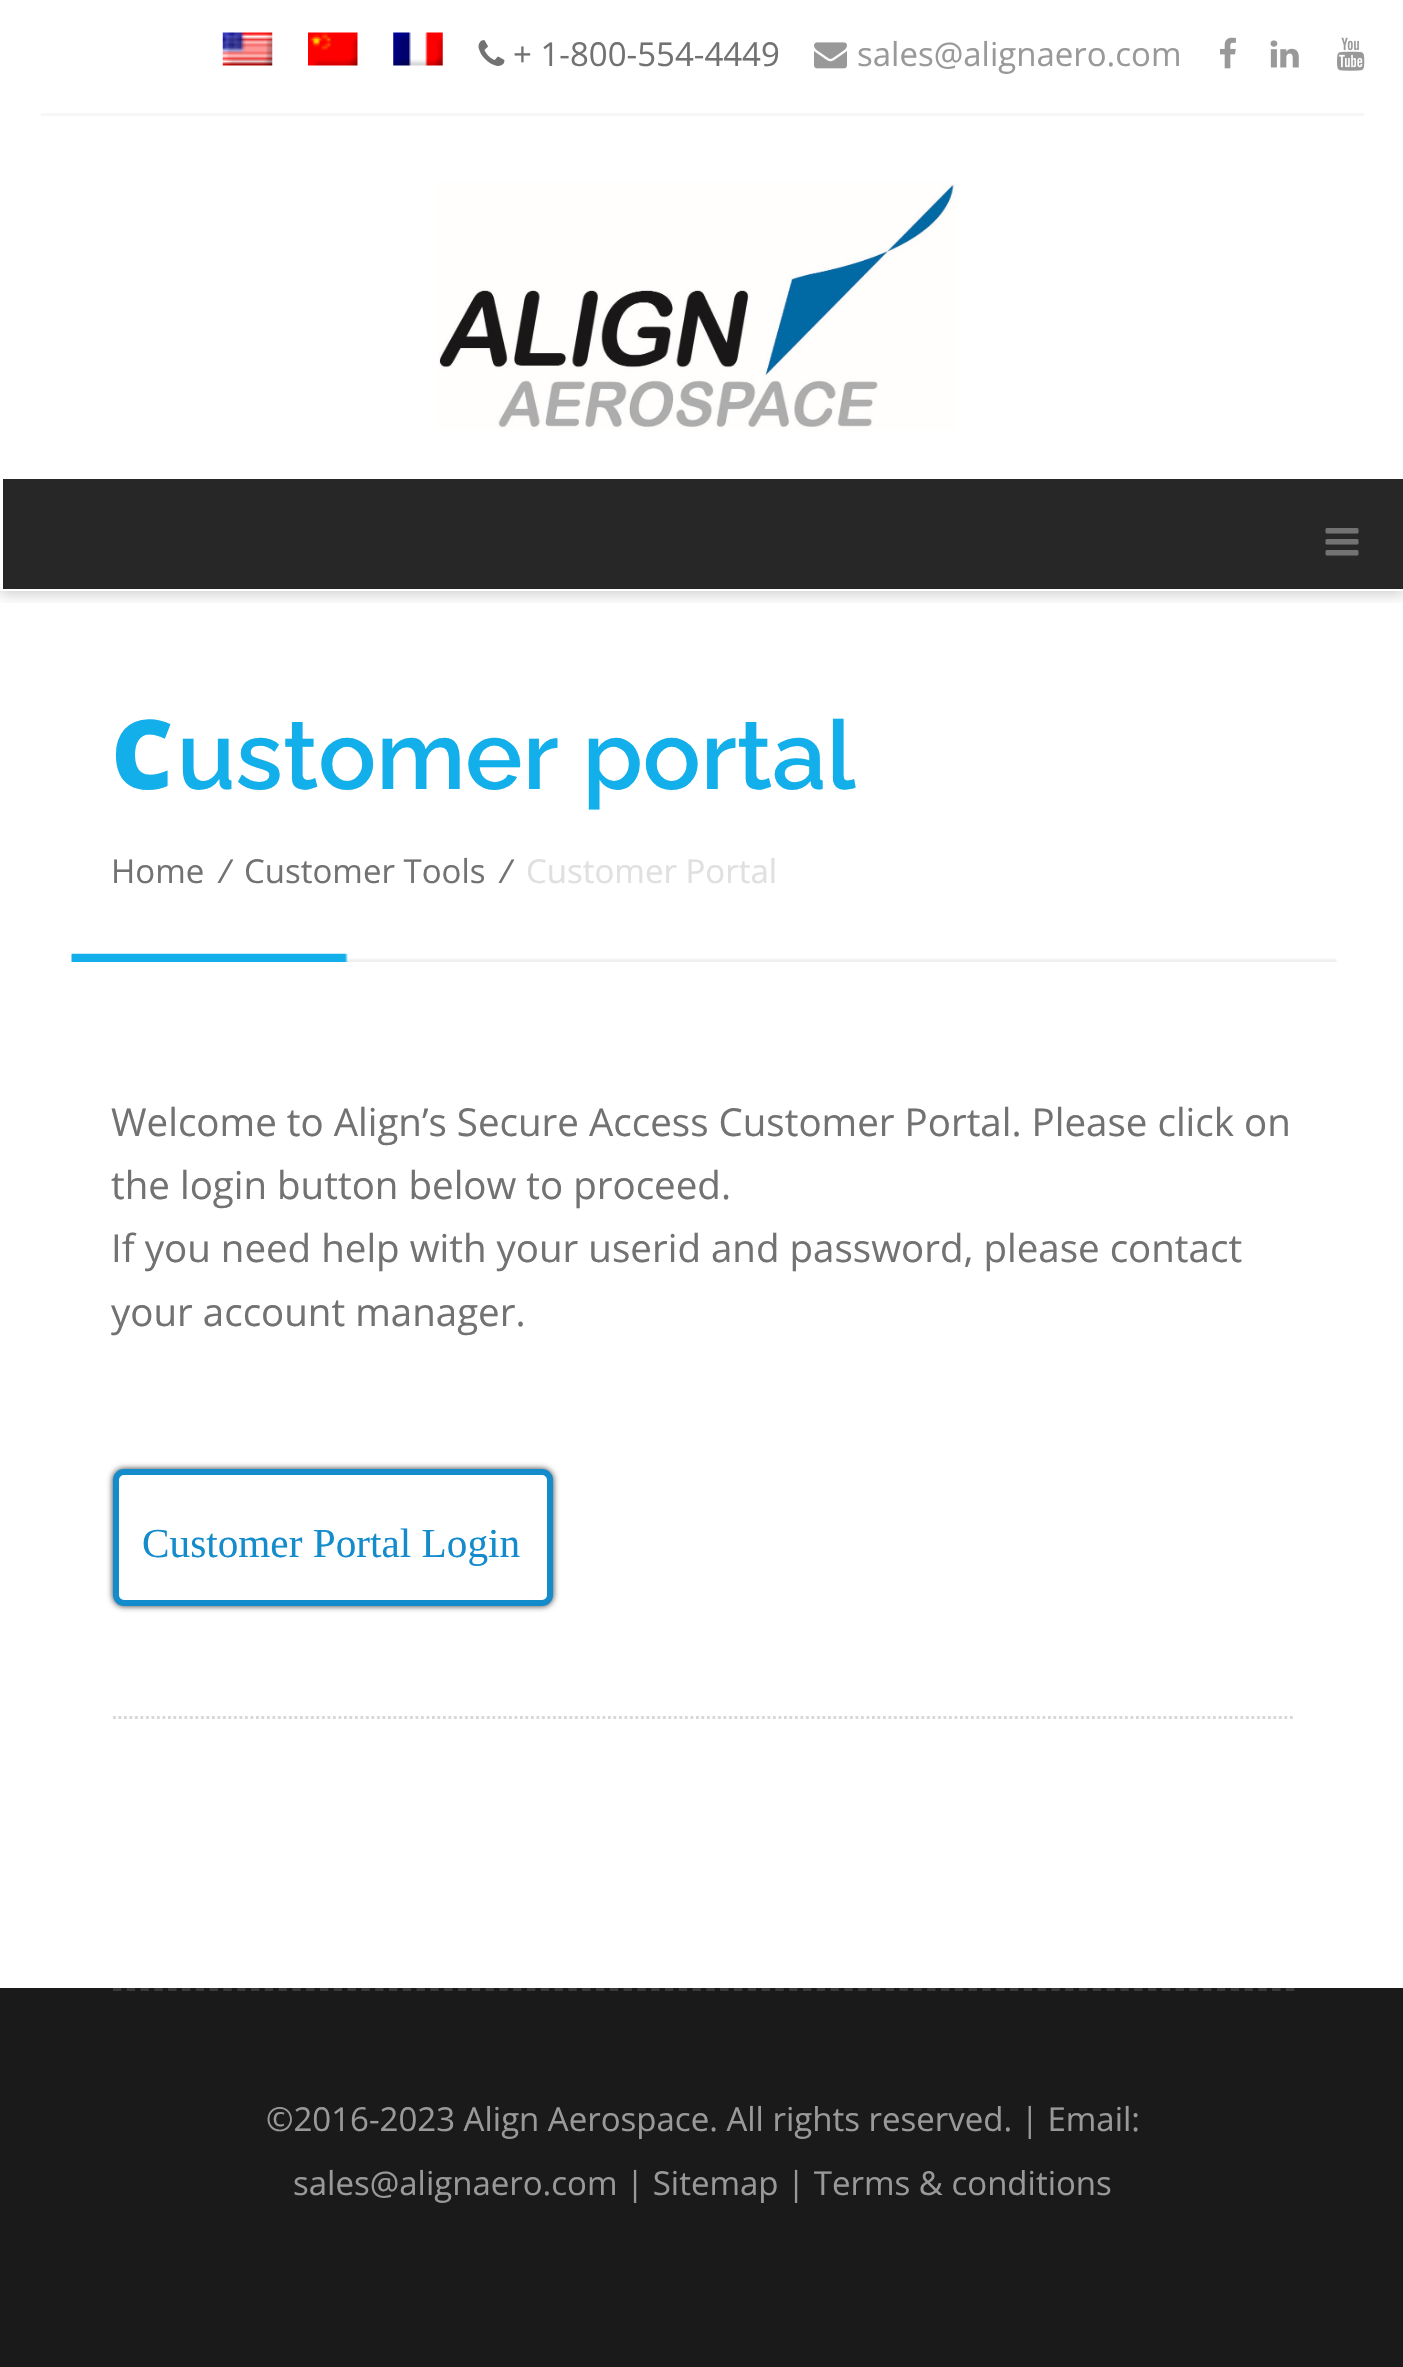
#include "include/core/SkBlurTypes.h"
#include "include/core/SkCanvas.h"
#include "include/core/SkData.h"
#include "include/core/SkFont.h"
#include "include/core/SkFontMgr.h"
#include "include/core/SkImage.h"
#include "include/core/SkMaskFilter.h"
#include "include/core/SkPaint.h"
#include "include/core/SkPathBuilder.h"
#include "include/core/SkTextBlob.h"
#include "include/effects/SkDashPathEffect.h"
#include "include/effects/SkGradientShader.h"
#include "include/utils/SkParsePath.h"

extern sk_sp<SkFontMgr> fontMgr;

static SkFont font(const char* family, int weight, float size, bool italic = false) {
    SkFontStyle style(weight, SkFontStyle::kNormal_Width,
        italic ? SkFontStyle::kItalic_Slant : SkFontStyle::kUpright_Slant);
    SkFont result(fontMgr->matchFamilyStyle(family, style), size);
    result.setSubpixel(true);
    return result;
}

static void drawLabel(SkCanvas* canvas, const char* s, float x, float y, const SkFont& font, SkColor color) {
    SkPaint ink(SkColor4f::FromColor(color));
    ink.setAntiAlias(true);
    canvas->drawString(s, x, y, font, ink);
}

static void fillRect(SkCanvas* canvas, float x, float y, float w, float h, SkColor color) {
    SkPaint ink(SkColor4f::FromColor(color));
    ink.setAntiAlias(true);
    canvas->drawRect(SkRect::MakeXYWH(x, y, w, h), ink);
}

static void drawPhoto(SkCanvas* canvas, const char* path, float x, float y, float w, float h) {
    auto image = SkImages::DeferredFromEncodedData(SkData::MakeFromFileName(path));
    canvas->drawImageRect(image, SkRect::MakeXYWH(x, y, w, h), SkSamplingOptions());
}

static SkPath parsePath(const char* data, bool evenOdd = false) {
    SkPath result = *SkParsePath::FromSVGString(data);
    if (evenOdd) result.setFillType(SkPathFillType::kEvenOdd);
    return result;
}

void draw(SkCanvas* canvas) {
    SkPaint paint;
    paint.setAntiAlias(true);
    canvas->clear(0xFFFFFFFF);
    canvas->save();
    canvas->clipRect(SkRect::MakeXYWH(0, 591, 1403, 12));
    paint.setColor(0x33000000);
    paint.setMaskFilter(SkMaskFilter::MakeBlur(kNormal_SkBlurStyle, 7));
    canvas->drawRect(SkRect::MakeXYWH(0, 118, 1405, 476), paint);
    paint.setMaskFilter(nullptr);
    canvas->restore();
    fillRect(canvas, 0, 107, 1403, 9, 0xFFFFFFFF);
    fillRect(canvas, 41, 113, 1323, 3, 0xFFF7F7F7);
    drawPhoto(canvas, "assets/img1.png", 222, 32, 51, 34);
    drawPhoto(canvas, "assets/img2.png", 308, 32, 50, 34);
    drawPhoto(canvas, "assets/img3.png", 393, 32, 50, 34);
    drawPhoto(canvas, "assets/img4.png", 478, 40, 27, 26);
    SkFont font1 = font("Open Sans", 400, 33);
    drawLabel(canvas, "+ 1-800-554-4449", 513, 66, font1, 0xFF727272);
    drawPhoto(canvas, "assets/img5.png", 814, 42, 33, 27);
    drawLabel(canvas, "sales@alignaero.com", 857, 66, font1, 0xFF999999);
    drawPhoto(canvas, "assets/img6.png", 1220, 37, 16, 32);
    drawPhoto(canvas, "assets/img7.png", 1270, 40, 29, 28);
    drawPhoto(canvas, "assets/img8.png", 1337, 37, 28, 34);
    drawPhoto(canvas, "assets/img9.png", 438, 182, 519, 248);
    fillRect(canvas, 3, 479, 1400, 110, 0xFF272727);
    drawPhoto(canvas, "assets/img10.png", 1325, 528, 34, 28);
    drawPhoto(canvas, "assets/img11.png", 71, 953, 1266, 9);
    SkFont font2 = font("Noto Sans", 900, 96.25f);
    drawLabel(canvas, "C", 111, 789, font2, 0xFF13AFEB);
    SkFont font3 = font("Raleway", 600, 96.25f);
    drawLabel(canvas, "ustomer portal", 177, 789, font3, 0xFF13AFEB);
    drawLabel(canvas, "Home", 111, 883, font1, 0xFF727272);
    SkFont font4 = font("Open Sans", 400, 33, true);
    drawLabel(canvas, "/", 219, 883, font4, 0xFF727272);
    drawLabel(canvas, "Customer Tools", 244, 883, font1, 0xFF727272);
    drawLabel(canvas, "/", 500, 883, font4, 0xFF727272);
    drawLabel(canvas, "Customer Portal", 526, 883, font1, 0xFFE0E0E0);
    SkFont font5 = font("Open Sans", 400, 38.5f);
    drawLabel(canvas, "Welcome to Align’s Secure Access Customer Portal. Please click on", 111, 1136, font5, 0xFF727272);
    drawLabel(canvas, "the login button below to proceed.", 111, 1199, font5, 0xFF727272);
    drawLabel(canvas, "If you need help with your userid and password, please contact", 111, 1262, font5, 0xFF727272);
    drawLabel(canvas, "your account manager.", 111, 1326, font5, 0xFF727272);
    paint.setColor(0xFF333333);
    paint.setMaskFilter(SkMaskFilter::MakeBlur(kNormal_SkBlurStyle, 3));
    canvas->drawRoundRect(SkRect::MakeXYWH(113, 1469, 440, 137), 11, 11, paint);
    paint.setMaskFilter(nullptr);
    paint.setColor(0xFFFFFFFF);
    canvas->drawRoundRect(SkRect::MakeXYWH(116, 1472, 434, 131), 8, 8, paint);
    paint.setStroke(true);
    paint.setStrokeWidth(6);
    paint.setColor(0xFF148CCC);
    canvas->drawRoundRect(SkRect::MakeXYWH(116, 1472, 434, 131), 8, 8, paint);
    SkFont font6 = font("Liberation Serif", 400, 41.25f);
    drawLabel(canvas, "Customer Portal Login", 142, 1557, font6, 0xFF148CCC);
    paint.setStrokeWidth(2.8f);
    paint.setColor(0xFFD7D7D7);
    paint.setPathEffect(SkDashPathEffect::Make({{2.75f, 2.75f}}, 0));
    canvas->drawPath(parsePath("M113 1717.5H1295"), paint);
    paint.setPathEffect(nullptr);
    fillRect(canvas, 0, 1988, 1403, 379, 0xFF1A1A1A);
    paint.setColor(0xFF3B3B3B);
    paint.setPathEffect(SkDashPathEffect::Make({{8.25f, 5.55f}}, 0));
    canvas->drawPath(parsePath("M113 1989.5H1295"), paint);
    paint.setPathEffect(nullptr);
    drawLabel(canvas, "©2016-2023 Align Aerospace. All rights reserved. | Email:", 266, 2131, font1, 0xFF999999);
    drawLabel(canvas, "sales@alignaero.com | Sitemap | Terms & conditions", 293, 2195, font1, 0xFF999999);
}
